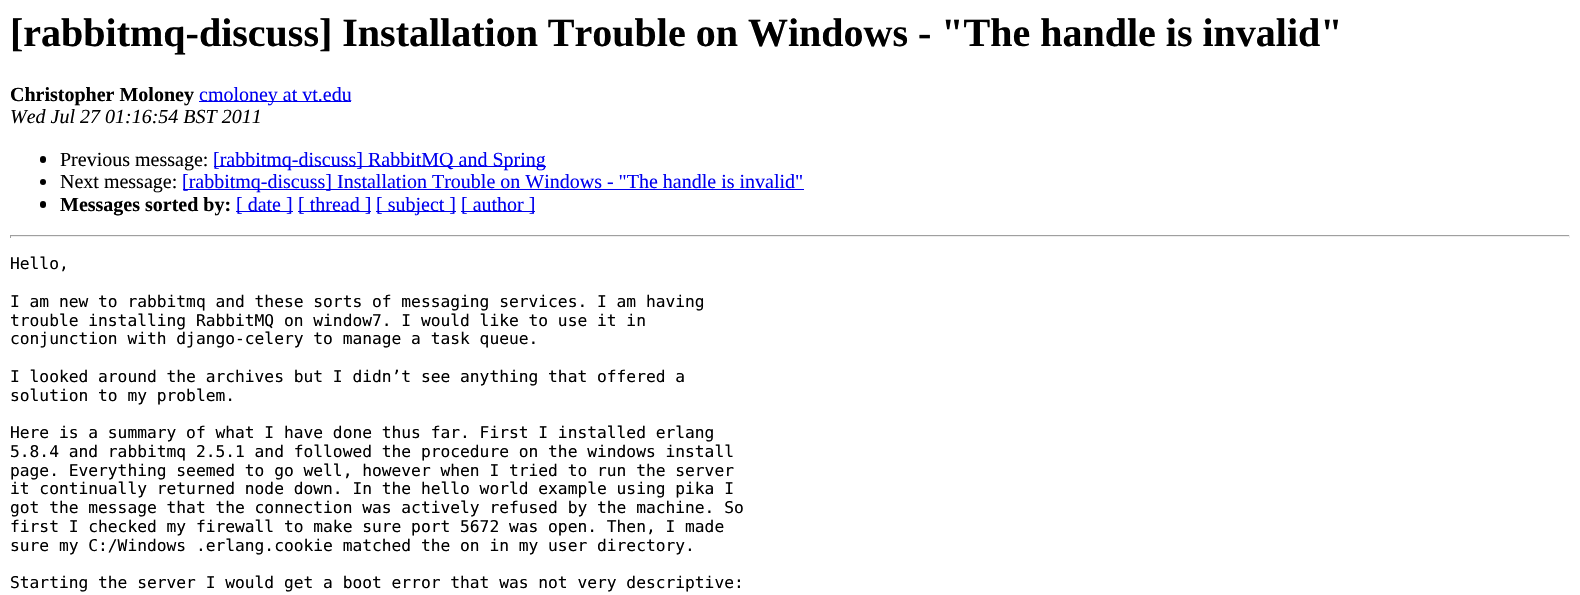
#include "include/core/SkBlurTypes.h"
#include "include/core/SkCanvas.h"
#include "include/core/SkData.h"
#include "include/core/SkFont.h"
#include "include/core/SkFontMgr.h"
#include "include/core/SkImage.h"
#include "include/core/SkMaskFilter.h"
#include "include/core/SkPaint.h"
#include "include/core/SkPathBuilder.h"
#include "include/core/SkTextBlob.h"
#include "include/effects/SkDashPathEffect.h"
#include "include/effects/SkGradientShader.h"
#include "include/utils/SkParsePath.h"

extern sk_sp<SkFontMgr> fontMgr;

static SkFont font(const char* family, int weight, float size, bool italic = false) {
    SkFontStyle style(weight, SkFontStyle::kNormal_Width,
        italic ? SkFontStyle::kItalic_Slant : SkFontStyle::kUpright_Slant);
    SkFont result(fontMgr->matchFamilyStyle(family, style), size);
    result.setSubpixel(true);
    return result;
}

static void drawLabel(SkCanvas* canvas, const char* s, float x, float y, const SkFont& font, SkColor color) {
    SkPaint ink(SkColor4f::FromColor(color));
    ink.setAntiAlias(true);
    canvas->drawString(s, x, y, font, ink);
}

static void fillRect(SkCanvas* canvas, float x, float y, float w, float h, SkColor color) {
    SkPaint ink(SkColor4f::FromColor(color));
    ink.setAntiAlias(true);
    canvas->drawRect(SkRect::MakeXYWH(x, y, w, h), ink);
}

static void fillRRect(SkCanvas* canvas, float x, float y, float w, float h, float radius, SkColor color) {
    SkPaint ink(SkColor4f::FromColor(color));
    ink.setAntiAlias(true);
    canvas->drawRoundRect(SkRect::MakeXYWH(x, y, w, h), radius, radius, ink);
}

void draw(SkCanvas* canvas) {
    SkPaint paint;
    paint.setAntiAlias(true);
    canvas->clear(0xFFFFFFFF);
    SkFont font1 = font("Liberation Serif", 700, 40);
    drawLabel(canvas, "[rabbitmq-discuss] Installation Trouble on Windows - \"The handle is invalid\"", 10, 46, font1, 0xFF000000);
    SkFont font2 = font("Liberation Serif", 700, 20);
    drawLabel(canvas, "Christopher Moloney", 10, 101, font2, 0xFF000000);
    fillRect(canvas, 199, 101, 152, 1, 0xFF0000EE);
    SkFont font3 = font("Liberation Serif", 400, 20);
    drawLabel(canvas, "cmoloney at vt.edu", 199, 101, font3, 0xFF0000EE);
    SkFont font4 = font("Liberation Serif", 400, 20, true);
    drawLabel(canvas, "Wed Jul 27 01:16:54 BST 2011", 10, 123, font4, 0xFF000000);
    fillRRect(canvas, 40, 156, 6, 7, 3, 0xFF000000);
    drawLabel(canvas, "Previous message:", 60, 166, font3, 0xFF000000);
    fillRect(canvas, 214, 166, 332, 1, 0xFF0000EE);
    drawLabel(canvas, "[rabbitmq-discuss] RabbitMQ and Spring", 213, 166, font3, 0xFF0000EE);
    paint.setColor(0xFF000000);
    canvas->drawCircle(43, 182, 3, paint);
    drawLabel(canvas, "Next message:", 60, 188, font3, 0xFF000000);
    fillRect(canvas, 183, 189, 621, 1, 0xFF0000EE);
    drawLabel(canvas, "[rabbitmq-discuss] Installation Trouble on Windows - \"The handle is invalid\"", 182, 188, font3, 0xFF0000EE);
    fillRRect(canvas, 40, 201, 6, 7, 3, 0xFF000000);
    drawLabel(canvas, "Messages sorted by:", 60, 211, font2, 0xFF000000);
    fillRect(canvas, 236, 211, 57, 1, 0xFF0000EE);
    drawLabel(canvas, "[ date ]", 236, 211, font3, 0xFF0000EE);
    fillRect(canvas, 298, 211, 73, 1, 0xFF0000EE);
    drawLabel(canvas, "[ thread ]", 298, 211, font3, 0xFF0000EE);
    fillRect(canvas, 376, 211, 80, 1, 0xFF0000EE);
    drawLabel(canvas, "[ subject ]", 376, 211, font3, 0xFF0000EE);
    fillRect(canvas, 461, 211, 74, 1, 0xFF0000EE);
    drawLabel(canvas, "[ author ]", 461, 211, font3, 0xFF0000EE);
    fillRect(canvas, 10, 235, 1560, 1, 0xFF9F9F9F);
    fillRect(canvas, 1569, 235, 1, 3, 0xFFEEEEEE);
    fillRect(canvas, 10, 236, 1560, 1, 0xFFEEEEEE);
    fillRect(canvas, 10, 235, 1, 3, 0xFF9F9F9F);
    SkFont font5 = font("DejaVu Sans Mono", 400, 16.25f);
    drawLabel(canvas, "Hello,", 10, 269, font5, 0xFF000000);
    drawLabel(canvas, "I am new to rabbitmq and these sorts of messaging services. I am having", 10, 307, font5, 0xFF000000);
    drawLabel(canvas, "trouble installing RabbitMQ on window7. I would like to use it in", 10, 326, font5, 0xFF000000);
    drawLabel(canvas, "conjunction with django-celery to manage a task queue.", 10, 344, font5, 0xFF000000);
    drawLabel(canvas, "I looked around the archives but I didn’t see anything that offered a", 10, 382, font5, 0xFF000000);
    drawLabel(canvas, "solution to my problem.", 10, 401, font5, 0xFF000000);
    drawLabel(canvas, "Here is a summary of what I have done thus far. First I installed erlang", 10, 438, font5, 0xFF000000);
    drawLabel(canvas, "5.8.4 and rabbitmq 2.5.1 and followed the procedure on the windows install", 10, 457, font5, 0xFF000000);
    drawLabel(canvas, "page. Everything seemed to go well, however when I tried to run the server", 10, 476, font5, 0xFF000000);
    drawLabel(canvas, "it continually returned node down. In the hello world example using pika I", 10, 494, font5, 0xFF000000);
    drawLabel(canvas, "got the message that the connection was actively refused by the machine. So", 10, 513, font5, 0xFF000000);
    drawLabel(canvas, "first I checked my firewall to make sure port 5672 was open. Then, I made", 10, 532, font5, 0xFF000000);
    drawLabel(canvas, "sure my C:/Windows .erlang.cookie matched the on in my user directory.", 10, 551, font5, 0xFF000000);
    drawLabel(canvas, "Starting the server I would get a boot error that was not very descriptive:", 10, 588, font5, 0xFF000000);
}
